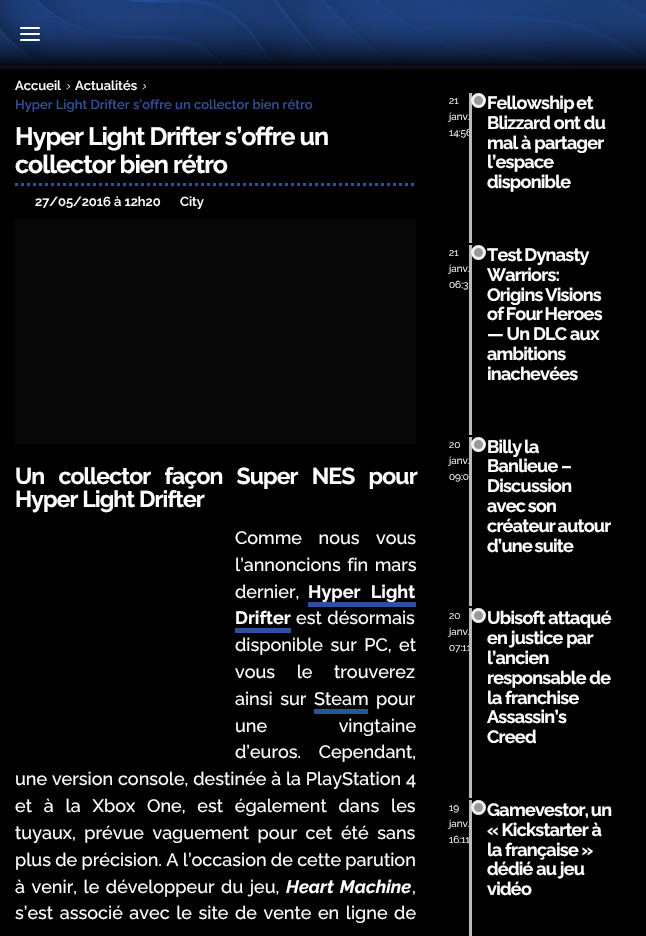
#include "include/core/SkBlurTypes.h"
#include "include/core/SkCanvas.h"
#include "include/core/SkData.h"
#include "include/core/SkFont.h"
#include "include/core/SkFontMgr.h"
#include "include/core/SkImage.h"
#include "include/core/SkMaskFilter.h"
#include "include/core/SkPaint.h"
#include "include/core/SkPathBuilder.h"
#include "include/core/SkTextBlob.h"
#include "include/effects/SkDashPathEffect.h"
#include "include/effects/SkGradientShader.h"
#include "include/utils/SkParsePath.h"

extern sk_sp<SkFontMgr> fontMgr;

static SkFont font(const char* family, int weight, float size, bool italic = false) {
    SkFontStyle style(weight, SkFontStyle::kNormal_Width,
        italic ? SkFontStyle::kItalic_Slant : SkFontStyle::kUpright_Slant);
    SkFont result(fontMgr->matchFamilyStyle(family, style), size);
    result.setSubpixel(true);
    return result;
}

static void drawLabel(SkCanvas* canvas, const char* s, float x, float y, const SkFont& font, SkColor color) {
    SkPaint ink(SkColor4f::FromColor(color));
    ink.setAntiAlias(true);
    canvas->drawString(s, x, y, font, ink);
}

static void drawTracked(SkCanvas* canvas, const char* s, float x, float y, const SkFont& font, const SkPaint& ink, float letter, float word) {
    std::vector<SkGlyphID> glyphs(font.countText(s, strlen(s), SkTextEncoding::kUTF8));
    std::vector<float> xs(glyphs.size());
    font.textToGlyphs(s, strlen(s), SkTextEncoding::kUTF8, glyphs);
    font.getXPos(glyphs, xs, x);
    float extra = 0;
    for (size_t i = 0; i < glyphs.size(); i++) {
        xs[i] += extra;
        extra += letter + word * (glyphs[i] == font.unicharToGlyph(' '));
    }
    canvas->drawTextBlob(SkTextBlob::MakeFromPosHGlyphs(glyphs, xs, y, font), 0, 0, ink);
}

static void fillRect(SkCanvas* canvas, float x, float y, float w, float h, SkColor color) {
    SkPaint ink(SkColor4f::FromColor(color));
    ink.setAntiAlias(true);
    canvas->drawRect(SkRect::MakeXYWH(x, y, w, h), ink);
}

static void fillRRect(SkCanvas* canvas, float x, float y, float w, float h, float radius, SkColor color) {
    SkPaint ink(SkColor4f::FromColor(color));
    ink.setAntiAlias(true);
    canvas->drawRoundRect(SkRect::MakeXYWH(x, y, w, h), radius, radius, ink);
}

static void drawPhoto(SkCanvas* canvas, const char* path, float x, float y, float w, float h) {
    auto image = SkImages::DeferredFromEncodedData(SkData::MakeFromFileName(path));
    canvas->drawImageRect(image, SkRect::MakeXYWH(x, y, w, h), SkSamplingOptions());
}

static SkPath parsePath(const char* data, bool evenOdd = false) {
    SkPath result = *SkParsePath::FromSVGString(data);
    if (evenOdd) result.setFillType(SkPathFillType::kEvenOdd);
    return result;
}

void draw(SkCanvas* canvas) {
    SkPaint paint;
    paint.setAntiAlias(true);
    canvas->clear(0xFF000000);
    drawPhoto(canvas, "assets/img1.png", 0, 0, 646, 70);
    fillRRect(canvas, 20, 27, 20, 2, 1, 0xFFFFFFFF);
    fillRRect(canvas, 20, 33, 20, 2, 1, 0xFFFFFFFF);
    fillRRect(canvas, 20, 39, 20, 2, 1, 0xFFFFFFFF);
    SkFont font1 = font("Raleway", 600, 13);
    drawLabel(canvas, "Accueil", 15, 90, font1, 0xFFFFFFFF);
    drawPhoto(canvas, "assets/img2.png", 66, 84, 5, 6);
    drawLabel(canvas, "Actualités", 75, 90, font1, 0xFFFFFFFF);
    drawPhoto(canvas, "assets/img2.png", 142, 84, 5, 6);
    drawLabel(canvas, "Hyper Light Drifter s’offre un collector bien rétro", 15, 109, font1, 0xFF2C519F);
    paint.setStroke(true);
    paint.setStrokeWidth(3);
    paint.setColor(0xFF2C519F);
    paint.setPathEffect(SkDashPathEffect::Make({{3, 3}}, 0));
    canvas->drawPath(parsePath("M15 184.5H416"), paint);
    paint.setPathEffect(nullptr);
    SkFont font2 = font("Raleway", 700, 25);
    paint.setStroke(false);
    paint.setColor(0xFFFFFFFF);
    drawTracked(canvas, "Hyper Light Drifter s’offre un", 15, 145, font2, paint, -1, 0);
    drawTracked(canvas, "collector bien rétro", 15, 173, font2, paint, -1, 0);
    drawLabel(canvas, "27/05/2016 à 12h20", 35, 206, font1, 0xFFFFFFFF);
    drawLabel(canvas, "City", 180, 206, font1, 0xFFFFFFFF);
    fillRect(canvas, 15, 219, 401, 225, 0xFF080808);
    SkFont font3 = font("Raleway", 700, 23);
    drawTracked(canvas, "Un collector façon Super NES pour", 15, 484, font3, paint, -0.9f, 9.5f);
    drawTracked(canvas, "Hyper Light Drifter", 15, 507, font3, paint, -0.9f, 0);
    SkFont font4 = font("Raleway", 500, 18);
    drawTracked(canvas, "Comme nous vous", 235, 544, font4, paint, 0, 12);
    drawTracked(canvas, "l’annoncions fin mars", 235, 571, font4, paint, 0, 2);
    drawLabel(canvas, "dernier,", 235, 598, font4, 0xFFFFFFFF);
    fillRect(canvas, 308, 602, 108, 5, 0xFF2C519F);
    SkFont font5 = font("Raleway", 700, 18);
    drawTracked(canvas, "Hyper Light", 308, 598, font5, paint, 0, 6);
    drawLabel(canvas, "Drifter", 235, 624, font5, 0xFFFFFFFF);
    fillRect(canvas, 235, 628, 56, 5, 0xFF2C519F);
    drawTracked(canvas, "est désormais", 296, 624, font4, paint, 0, 1);
    drawTracked(canvas, "disponible sur PC, et", 235, 651, font4, paint, 0, 3);
    drawTracked(canvas, "vous le trouverez", 235, 678, font4, paint, 0, 17);
    drawTracked(canvas, "ainsi sur", 235, 705, font4, paint, 0, 3);
    drawLabel(canvas, "Steam", 314, 705, font4, 0xFFFFFFFF);
    fillRect(canvas, 314, 709, 54, 5, 0xFF2C519F);
    drawLabel(canvas, "pour", 376, 705, font4, 0xFFFFFFFF);
    drawTracked(canvas, "une vingtaine", 235, 732, font4, paint, 0, 67);
    drawTracked(canvas, "d’euros. Cependant,", 235, 758, font4, paint, 0, 13);
    drawTracked(canvas, "une version console, destinée à la PlayStation 4", 15, 785, font4, paint, 0, 0.25f);
    drawTracked(canvas, "et à la Xbox One, est également dans les", 15, 812, font4, paint, 0, 7.25f);
    drawTracked(canvas, "tuyaux, prévue vaguement pour cet été sans", 15, 839, font4, paint, 0, 4);
    drawTracked(canvas, "plus de précision. A l’occasion de cette parution", 15, 866, font4, paint, 0, -0.25f);
    drawTracked(canvas, "à venir, le développeur du jeu,", 15, 893, font4, paint, 0, 2);
    SkFont font6 = font("Raleway", 700, 18, true);
    drawTracked(canvas, "Heart Machine", 286, 893, font6, paint, 0, 2);
    drawLabel(canvas, ",", 412, 893, font4, 0xFFFFFFFF);
    drawTracked(canvas, "s’est associé avec le site de vente en ligne de", 15, 919, font4, paint, 0, 2);
    SkFont font7 = font("Raleway", 400, 10);
    drawLabel(canvas, "21", 449, 104, font7, 0xFFFFFFFF);
    drawLabel(canvas, "janv.", 449, 120, font7, 0xFFFFFFFF);
    drawLabel(canvas, "14:56", 449, 136, font7, 0xFFFFFFFF);
    fillRect(canvas, 469, 93, 3, 150, 0xFFBBBBBB);
    paint.setColor(0xFF999999);
    canvas->drawCircle(478.5f, 100.5f, 6, paint);
    paint.setStroke(true);
    paint.setColor(0xFFF1F1F1);
    canvas->drawCircle(478.5f, 100.5f, 6, paint);
    paint.setStroke(false);
    paint.setColor(0xFFFFFFFF);
    drawTracked(canvas, "Fellowship et", 487, 109, font5, paint, -0.75f, -1);
    drawTracked(canvas, "Blizzard ont du", 487, 129, font5, paint, -0.75f, 0);
    drawTracked(canvas, "mal à partager", 487, 149, font5, paint, -0.75f, 0);
    drawTracked(canvas, "l’espace", 487, 168, font5, paint, -0.75f, 0);
    drawTracked(canvas, "disponible", 487, 188, font5, paint, -0.75f, 0);
    drawLabel(canvas, "21", 449, 256, font7, 0xFFFFFFFF);
    drawLabel(canvas, "janv.", 449, 272, font7, 0xFFFFFFFF);
    drawLabel(canvas, "06:3", 449, 288, font7, 0xFFFFFFFF);
    fillRect(canvas, 469, 245, 3, 190, 0xFFBBBBBB);
    paint.setColor(0xFF999999);
    canvas->drawCircle(478.5f, 252.5f, 6, paint);
    paint.setStroke(true);
    paint.setColor(0xFFF1F1F1);
    canvas->drawCircle(478.5f, 252.5f, 6, paint);
    paint.setStroke(false);
    paint.setColor(0xFFFFFFFF);
    drawTracked(canvas, "Test Dynasty", 487, 261, font5, paint, -0.75f, -1);
    drawTracked(canvas, "Warriors:", 487, 281, font5, paint, -0.75f, 0);
    drawTracked(canvas, "Origins Visions", 487, 301, font5, paint, -0.75f, -1);
    drawTracked(canvas, "of Four Heroes", 487, 320, font5, paint, -0.75f, -1);
    drawTracked(canvas, "— Un DLC aux", 487, 340, font5, paint, -0.75f, 0);
    drawTracked(canvas, "ambitions", 487, 360, font5, paint, -0.75f, 0);
    drawTracked(canvas, "inachevées", 487, 380, font5, paint, -0.75f, 0);
    drawLabel(canvas, "20", 449, 448, font7, 0xFFFFFFFF);
    drawLabel(canvas, "janv.", 449, 464, font7, 0xFFFFFFFF);
    drawLabel(canvas, "09:0", 449, 480, font7, 0xFFFFFFFF);
    fillRect(canvas, 469, 437, 3, 169, 0xFFBBBBBB);
    paint.setColor(0xFF999999);
    canvas->drawCircle(478.5f, 444.5f, 6, paint);
    paint.setStroke(true);
    paint.setColor(0xFFF1F1F1);
    canvas->drawCircle(478.5f, 444.5f, 6, paint);
    paint.setStroke(false);
    paint.setColor(0xFFFFFFFF);
    drawTracked(canvas, "Billy la", 487, 453, font5, paint, -0.75f, -1);
    drawTracked(canvas, "Banlieue –", 487, 472, font5, paint, -0.75f, 0);
    drawTracked(canvas, "Discussion", 487, 492, font5, paint, -0.75f, 0);
    drawTracked(canvas, "avec son", 487, 512, font5, paint, -0.75f, -1);
    drawTracked(canvas, "créateur autour", 487, 532, font5, paint, -0.75f, -1);
    drawTracked(canvas, "d’une suite", 487, 552, font5, paint, -0.75f, -1);
    drawLabel(canvas, "20", 449, 619, font7, 0xFFFFFFFF);
    drawLabel(canvas, "janv.", 449, 635, font7, 0xFFFFFFFF);
    drawLabel(canvas, "07:11", 449, 651, font7, 0xFFFFFFFF);
    fillRect(canvas, 469, 608, 3, 190, 0xFFBBBBBB);
    paint.setColor(0xFF999999);
    canvas->drawCircle(478.5f, 615.5f, 6, paint);
    paint.setStroke(true);
    paint.setColor(0xFFF1F1F1);
    canvas->drawCircle(478.5f, 615.5f, 6, paint);
    paint.setStroke(false);
    paint.setColor(0xFFFFFFFF);
    drawTracked(canvas, "Ubisoft attaqué", 487, 624, font5, paint, -0.75f, 0);
    drawTracked(canvas, "en justice par", 487, 644, font5, paint, -0.75f, 0);
    drawTracked(canvas, "l’ancien", 487, 664, font5, paint, -0.75f, 0);
    drawTracked(canvas, "responsable de", 487, 684, font5, paint, -0.75f, 0);
    drawTracked(canvas, "la franchise", 487, 704, font5, paint, -0.75f, 0);
    drawTracked(canvas, "Assassin’s", 487, 723, font5, paint, -0.75f, 0);
    drawTracked(canvas, "Creed", 487, 743, font5, paint, -0.75f, 0);
    drawLabel(canvas, "19", 449, 811, font7, 0xFFFFFFFF);
    drawLabel(canvas, "janv.", 449, 827, font7, 0xFFFFFFFF);
    drawLabel(canvas, "16:11", 449, 843, font7, 0xFFFFFFFF);
    fillRect(canvas, 469, 800, 3, 136, 0xFFBBBBBB);
    paint.setColor(0xFF999999);
    canvas->drawCircle(478.5f, 807.5f, 6, paint);
    paint.setStroke(true);
    paint.setColor(0xFFF1F1F1);
    canvas->drawCircle(478.5f, 807.5f, 6, paint);
    paint.setStroke(false);
    paint.setColor(0xFFFFFFFF);
    drawTracked(canvas, "Gamevestor, un", 487, 816, font5, paint, -0.75f, -1);
    drawTracked(canvas, "« Kickstarter à", 487, 836, font5, paint, -0.75f, 0);
    drawTracked(canvas, "la française »", 487, 856, font5, paint, -0.75f, 0);
    drawTracked(canvas, "dédié au jeu", 487, 875, font5, paint, -0.75f, 0);
    drawTracked(canvas, "vidéo", 487, 895, font5, paint, -0.75f, 0);
}
